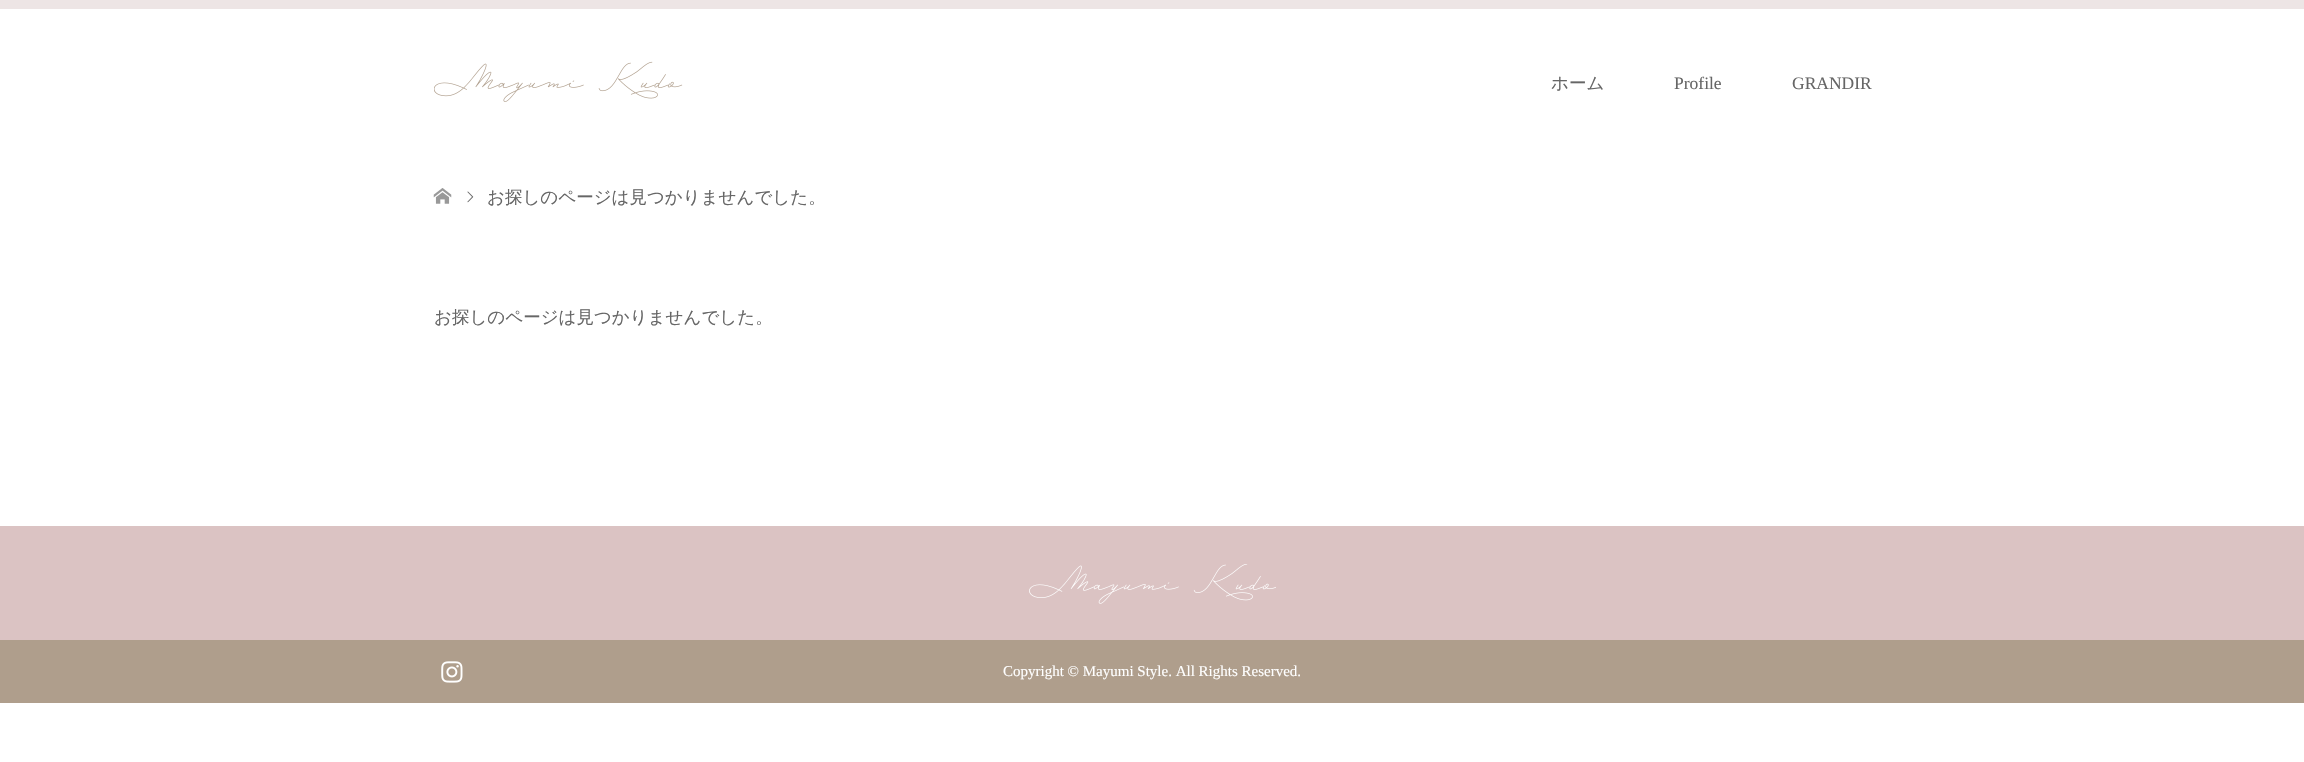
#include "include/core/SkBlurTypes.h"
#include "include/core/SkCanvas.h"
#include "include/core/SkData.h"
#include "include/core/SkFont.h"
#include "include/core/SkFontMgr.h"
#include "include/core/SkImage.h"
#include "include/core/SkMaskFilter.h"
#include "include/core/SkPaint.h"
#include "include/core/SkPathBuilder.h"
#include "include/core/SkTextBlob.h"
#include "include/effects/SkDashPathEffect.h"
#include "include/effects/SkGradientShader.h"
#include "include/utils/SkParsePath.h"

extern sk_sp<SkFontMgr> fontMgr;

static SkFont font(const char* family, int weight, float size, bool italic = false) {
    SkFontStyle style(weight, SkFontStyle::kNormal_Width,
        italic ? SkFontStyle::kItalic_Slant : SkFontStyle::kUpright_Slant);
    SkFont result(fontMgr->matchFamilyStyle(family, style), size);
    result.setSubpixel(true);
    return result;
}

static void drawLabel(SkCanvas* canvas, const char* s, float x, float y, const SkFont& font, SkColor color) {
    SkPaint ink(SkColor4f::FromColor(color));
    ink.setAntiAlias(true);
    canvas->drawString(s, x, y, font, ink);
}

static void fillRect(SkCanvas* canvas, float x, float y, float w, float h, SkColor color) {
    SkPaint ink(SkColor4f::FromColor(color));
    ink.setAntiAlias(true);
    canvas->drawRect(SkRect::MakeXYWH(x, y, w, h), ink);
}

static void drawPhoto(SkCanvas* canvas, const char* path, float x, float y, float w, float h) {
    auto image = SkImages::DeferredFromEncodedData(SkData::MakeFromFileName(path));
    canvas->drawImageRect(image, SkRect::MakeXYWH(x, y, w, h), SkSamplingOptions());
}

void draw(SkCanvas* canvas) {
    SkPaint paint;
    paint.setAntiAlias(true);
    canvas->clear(0xFFFFFFFF);
    fillRect(canvas, 0, 0, 2304, 9, 0xFFEDE5E5);
    drawPhoto(canvas, "assets/img1.png", 434, 61, 249, 41);
    SkFont font1 = font("WenQuanYi Zen Hei", 500, 17.5f);
    drawLabel(canvas, "ホーム", 1551, 89, font1, 0xFF666666);
    SkFont font2 = font("Liberation Serif", 400, 17.5f);
    drawLabel(canvas, "Profile", 1674, 89, font2, 0xFF666666);
    drawLabel(canvas, "GRANDIR", 1792, 89, font2, 0xFF666666);
    drawPhoto(canvas, "assets/img2.png", 433, 188, 19, 16);
    drawPhoto(canvas, "assets/img3.png", 467, 191, 7, 12);
    drawLabel(canvas, "お探しのページは見つかりませんでした。", 487, 203, font1, 0xFF666666);
    drawLabel(canvas, "お探しのページは見つかりませんでした。", 434, 323, font1, 0xFF666666);
    fillRect(canvas, 0, 526, 2304, 114, 0xFFDBC3C3);
    drawPhoto(canvas, "assets/img4.png", 1029, 564, 247, 40);
    fillRect(canvas, 0, 640, 2304, 63, 0xFFAF9E8C);
    drawPhoto(canvas, "assets/img5.png", 441, 661, 22, 22);
    SkFont font3 = font("Liberation Serif", 400, 15);
    drawLabel(canvas, "Copyright © Mayumi Style. All Rights Reserved.", 1003, 676, font3, 0xFFFFFFFF);
}
